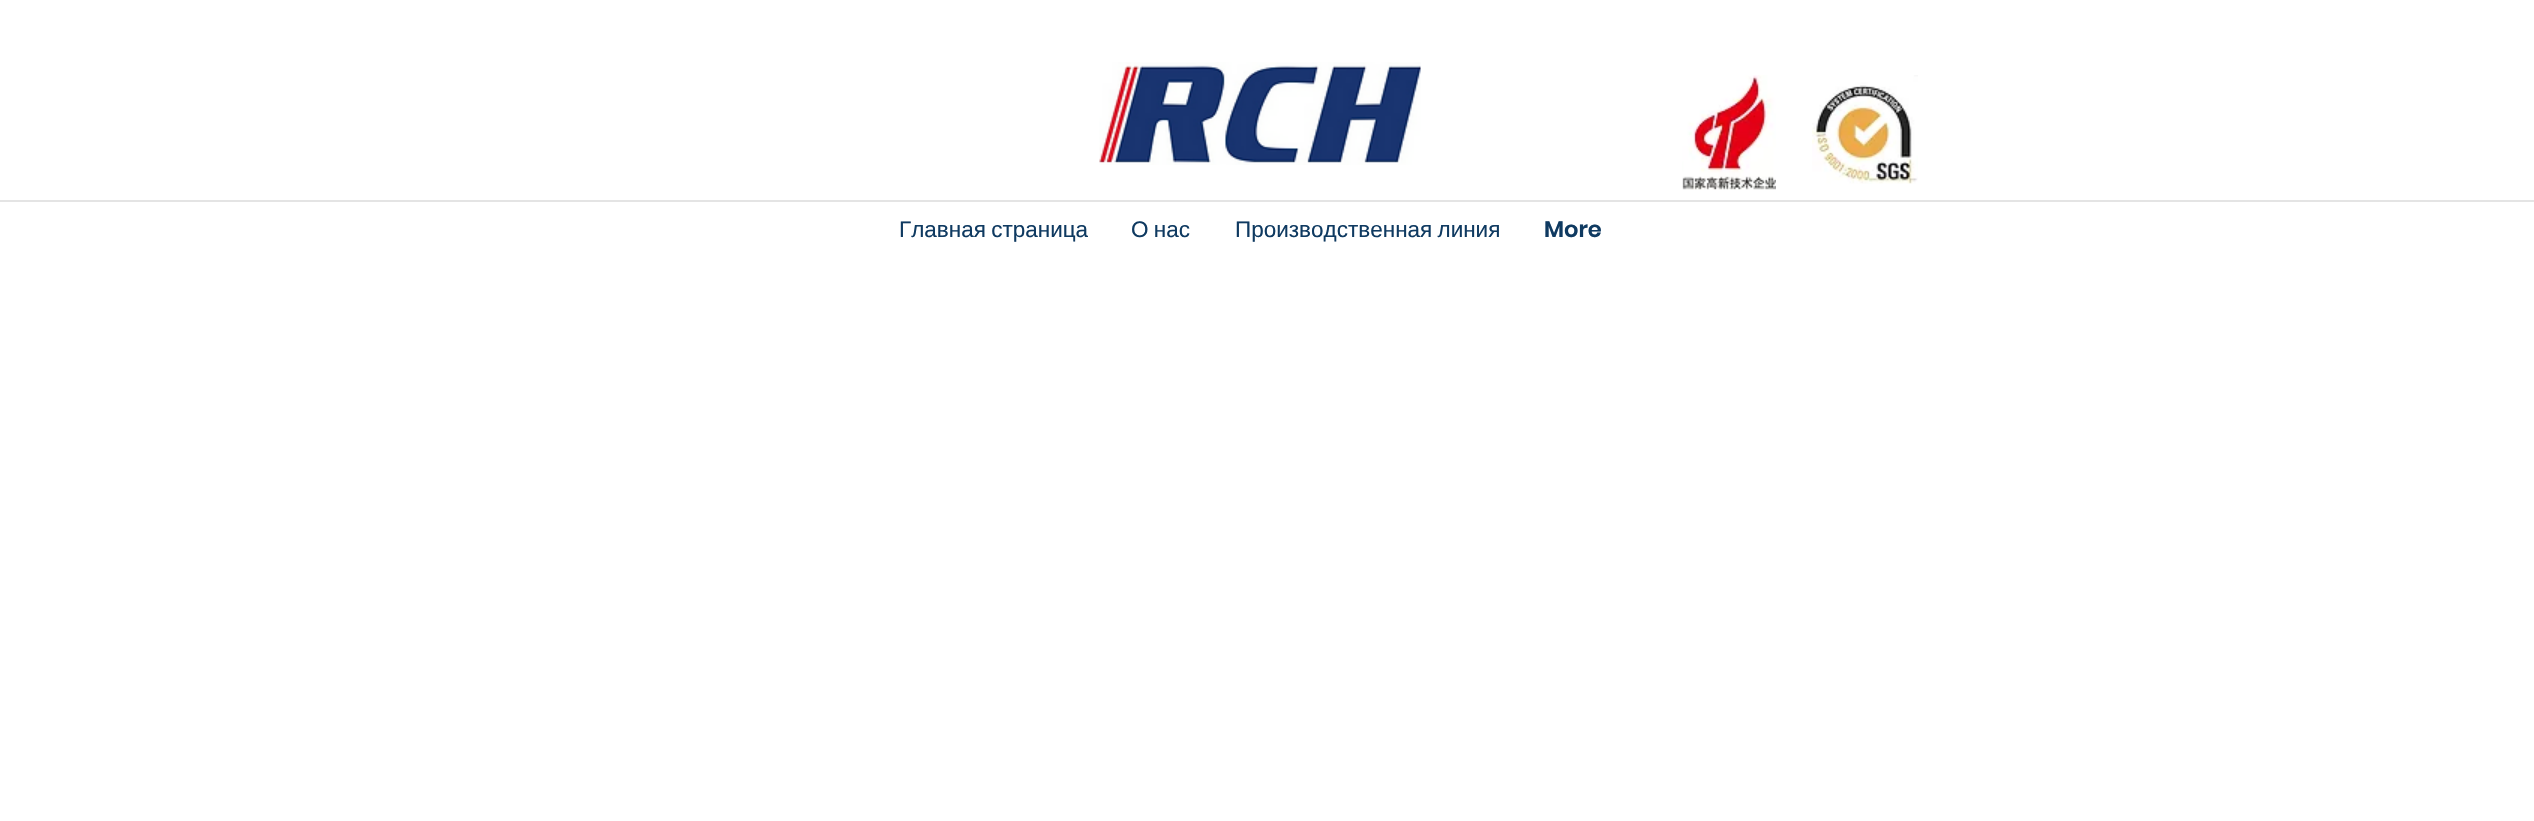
#include "include/core/SkBlurTypes.h"
#include "include/core/SkCanvas.h"
#include "include/core/SkData.h"
#include "include/core/SkFont.h"
#include "include/core/SkFontMgr.h"
#include "include/core/SkImage.h"
#include "include/core/SkMaskFilter.h"
#include "include/core/SkPaint.h"
#include "include/core/SkPathBuilder.h"
#include "include/core/SkTextBlob.h"
#include "include/effects/SkDashPathEffect.h"
#include "include/effects/SkGradientShader.h"
#include "include/utils/SkParsePath.h"

extern sk_sp<SkFontMgr> fontMgr;

static SkFont font(const char* family, int weight, float size, bool italic = false) {
    SkFontStyle style(weight, SkFontStyle::kNormal_Width,
        italic ? SkFontStyle::kItalic_Slant : SkFontStyle::kUpright_Slant);
    SkFont result(fontMgr->matchFamilyStyle(family, style), size);
    result.setSubpixel(true);
    return result;
}

static void drawLabel(SkCanvas* canvas, const char* s, float x, float y, const SkFont& font, SkColor color) {
    SkPaint ink(SkColor4f::FromColor(color));
    ink.setAntiAlias(true);
    canvas->drawString(s, x, y, font, ink);
}

static void drawTracked(SkCanvas* canvas, const char* s, float x, float y, const SkFont& font, const SkPaint& ink, float letter, float word) {
    std::vector<SkGlyphID> glyphs(font.countText(s, strlen(s), SkTextEncoding::kUTF8));
    std::vector<float> xs(glyphs.size());
    font.textToGlyphs(s, strlen(s), SkTextEncoding::kUTF8, glyphs);
    font.getXPos(glyphs, xs, x);
    float extra = 0;
    for (size_t i = 0; i < glyphs.size(); i++) {
        xs[i] += extra;
        extra += letter + word * (glyphs[i] == font.unicharToGlyph(' '));
    }
    canvas->drawTextBlob(SkTextBlob::MakeFromPosHGlyphs(glyphs, xs, y, font), 0, 0, ink);
}

static void fillRect(SkCanvas* canvas, float x, float y, float w, float h, SkColor color) {
    SkPaint ink(SkColor4f::FromColor(color));
    ink.setAntiAlias(true);
    canvas->drawRect(SkRect::MakeXYWH(x, y, w, h), ink);
}

static void drawPhoto(SkCanvas* canvas, const char* path, float x, float y, float w, float h) {
    auto image = SkImages::DeferredFromEncodedData(SkData::MakeFromFileName(path));
    canvas->drawImageRect(image, SkRect::MakeXYWH(x, y, w, h), SkSamplingOptions());
}

void draw(SkCanvas* canvas) {
    SkPaint paint;
    paint.setAntiAlias(true);
    canvas->clear(0xFFFFFFFF);
    drawPhoto(canvas, "assets/img1.png", 1099, 62, 322, 103);
    drawPhoto(canvas, "assets/img2.png", 1682, 75, 94, 115);
    drawPhoto(canvas, "assets/img3.png", 1812, 75, 106, 109);
    fillRect(canvas, 0, 200, 2534, 2, 0xFFE4E4E4);
    SkFont font1 = font("Liberation Sans", 400, 22.5f);
    paint.setColor(0xFF0F3A61);
    drawTracked(canvas, "Главная страница", 899, 237, font1, paint, 0, -1);
    drawTracked(canvas, "О нас", 1131, 237, font1, paint, 0, -1);
    drawTracked(canvas, "Производственная линия", 1235, 237, font1, paint, 0, -1);
    SkFont font2 = font("Poppins", 600, 22.5f);
    drawLabel(canvas, "More", 1544, 237, font2, 0xFF0F3A61);
}
